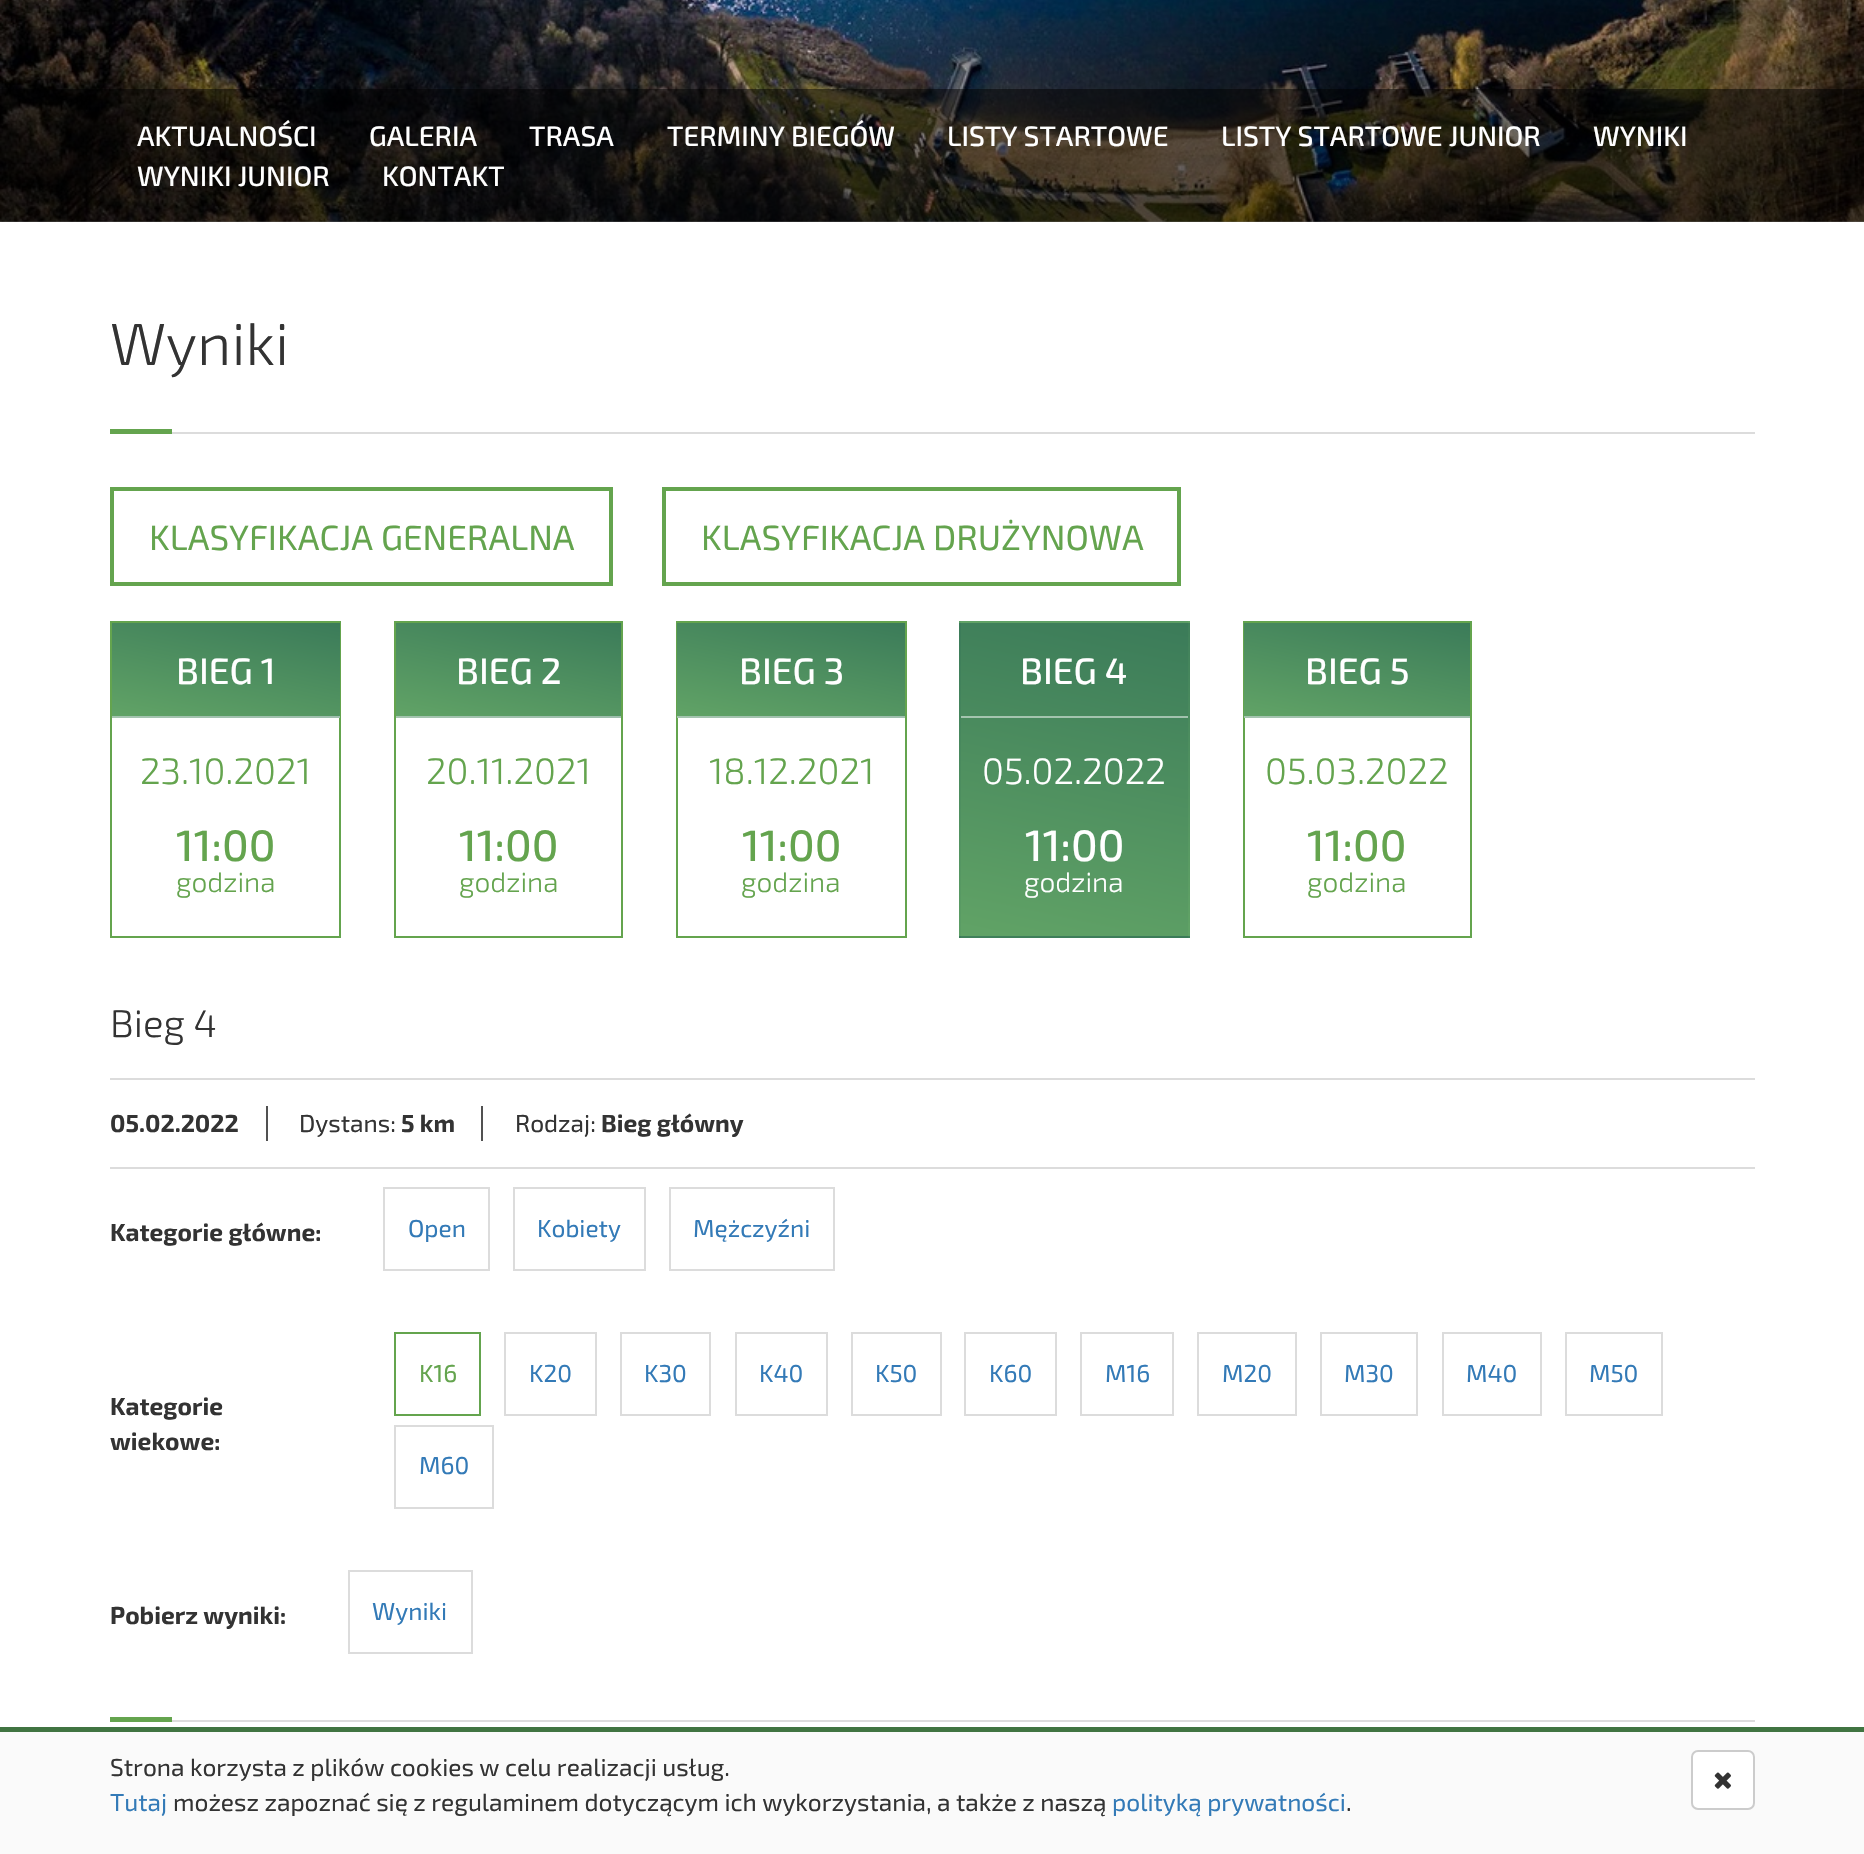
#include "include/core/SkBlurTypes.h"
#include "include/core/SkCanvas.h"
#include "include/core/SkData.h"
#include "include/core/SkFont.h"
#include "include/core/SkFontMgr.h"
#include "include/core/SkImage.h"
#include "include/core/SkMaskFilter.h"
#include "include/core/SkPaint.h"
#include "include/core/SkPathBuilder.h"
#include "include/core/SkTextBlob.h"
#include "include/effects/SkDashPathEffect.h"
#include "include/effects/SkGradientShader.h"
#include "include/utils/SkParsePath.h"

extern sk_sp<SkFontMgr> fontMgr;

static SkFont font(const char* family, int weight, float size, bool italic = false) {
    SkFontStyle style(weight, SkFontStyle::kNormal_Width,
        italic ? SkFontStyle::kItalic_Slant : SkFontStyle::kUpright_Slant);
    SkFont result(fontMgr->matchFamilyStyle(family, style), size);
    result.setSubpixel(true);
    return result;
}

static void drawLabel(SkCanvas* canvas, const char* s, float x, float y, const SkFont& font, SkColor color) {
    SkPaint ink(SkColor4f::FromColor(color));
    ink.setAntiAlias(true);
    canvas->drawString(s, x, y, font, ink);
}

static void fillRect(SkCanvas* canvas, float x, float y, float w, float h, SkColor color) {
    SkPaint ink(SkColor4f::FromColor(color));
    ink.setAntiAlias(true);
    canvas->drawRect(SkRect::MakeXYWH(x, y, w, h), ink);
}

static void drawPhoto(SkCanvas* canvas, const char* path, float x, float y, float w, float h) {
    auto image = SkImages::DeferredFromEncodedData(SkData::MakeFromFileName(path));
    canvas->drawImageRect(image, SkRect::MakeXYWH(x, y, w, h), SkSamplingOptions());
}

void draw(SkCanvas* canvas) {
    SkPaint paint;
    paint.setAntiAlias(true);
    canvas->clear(0xFFFFFFFF);
    drawPhoto(canvas, "assets/img1.png", 0, 0, 1864, 222);
    fillRect(canvas, 0, 89, 1864, 133, 0x80000000);
    SkFont font1 = font("Exo 2", 500, 28);
    drawLabel(canvas, "AKTUALNOŚCI", 137, 146, font1, 0xFFFFFFFF);
    drawLabel(canvas, "GALERIA", 369, 146, font1, 0xFFFFFFFF);
    drawLabel(canvas, "TRASA", 529, 146, font1, 0xFFFFFFFF);
    drawLabel(canvas, "TERMINY BIEGÓW", 667, 146, font1, 0xFFFFFFFF);
    drawLabel(canvas, "LISTY STARTOWE", 947, 146, font1, 0xFFFFFFFF);
    drawLabel(canvas, "LISTY STARTOWE JUNIOR", 1221, 146, font1, 0xFFFFFFFF);
    drawLabel(canvas, "WYNIKI", 1593, 146, font1, 0xFFFFFFFF);
    drawLabel(canvas, "WYNIKI JUNIOR", 137, 186, font1, 0xFFFFFFFF);
    drawLabel(canvas, "KONTAKT", 382, 186, font1, 0xFFFFFFFF);
    SkFont font2 = font("Exo 2", 300, 59.5f);
    drawLabel(canvas, "Wyniki", 110, 365, font2, 0xFF333333);
    fillRect(canvas, 172, 432, 1583, 2, 0xFFDCDCDC);
    fillRect(canvas, 110, 429, 62, 5, 0xFF64A44E);
    paint.setStroke(true);
    paint.setStrokeWidth(4);
    paint.setColor(0xFF64A44E);
    canvas->drawRect(SkRect::MakeXYWH(112, 489, 499, 95), paint);
    SkFont font3 = font("Exo 2", 400, 35);
    drawLabel(canvas, "KLASYFIKACJA GENERALNA", 149, 550, font3, 0xFF64A44E);
    canvas->drawRect(SkRect::MakeXYWH(664, 489, 515, 95), paint);
    drawLabel(canvas, "KLASYFIKACJA DRUŻYNOWA", 701, 550, font3, 0xFF64A44E);
    paint.setStrokeWidth(2);
    canvas->drawRect(SkRect::MakeXYWH(111, 622, 229, 315), paint);
    paint.setStroke(false);
    {
        const SkColor colors[] = {0xFF61A366, 0xFF3B7B59};
        const float stops[] = {0, 1};
        const SkPoint ends[] = {{211, 737}, {240, 602}};
        paint.setShader(SkGradientShader::MakeLinear(ends, colors, stops, 2, SkTileMode::kClamp));
        paint.setAlpha(255);
    }
    canvas->drawRect(SkRect::MakeXYWH(112, 623, 228, 93), paint);
    {
        const SkColor colors[] = {0xFF61A366, 0xFF3B7B59};
        const float stops[] = {0, 1};
        const SkPoint ends[] = {{211, 830}, {240, 695}};
        paint.setShader(SkGradientShader::MakeLinear(ends, colors, stops, 2, SkTileMode::kClamp));
        paint.setAlpha(255);
    }
    canvas->drawRect(SkRect::MakeXYWH(112, 716, 228, 2), paint);
    fillRect(canvas, 112, 716, 228, 2, 0x80FFFFFF);
    SkFont font4 = font("Exo 2", 500, 36.75f);
    drawLabel(canvas, "BIEG 1", 176, 684, font4, 0xFFFFFFFF);
    SkFont font5 = font("Exo 2", 300, 36.75f);
    drawLabel(canvas, "23.10.2021", 140, 784, font5, 0xFF64A44E);
    SkFont font6 = font("Exo 2", 500, 44);
    drawLabel(canvas, "11:00", 176, 861, font6, 0xFF64A44E);
    SkFont font7 = font("Exo 2", 300, 28);
    drawLabel(canvas, "godzina", 176, 892, font7, 0xFF64A44E);
    paint.setStroke(true);
    paint.setShader(nullptr);
    paint.setColor(0xFF64A44E);
    canvas->drawRect(SkRect::MakeXYWH(395, 622, 227, 315), paint);
    paint.setStroke(false);
    {
        const SkColor colors[] = {0xFF61A366, 0xFF3B7B59};
        const float stops[] = {0, 1};
        const SkPoint ends[] = {{494, 737}, {523, 602}};
        paint.setShader(SkGradientShader::MakeLinear(ends, colors, stops, 2, SkTileMode::kClamp));
        paint.setAlpha(255);
    }
    canvas->drawRect(SkRect::MakeXYWH(396, 623, 225, 93), paint);
    {
        const SkColor colors[] = {0xFFB0D1B3, 0xFF9DBDAC};
        const float stops[] = {0, 1};
        const SkPoint ends[] = {{494, 829}, {523, 695}};
        paint.setShader(SkGradientShader::MakeLinear(ends, colors, stops, 2, SkTileMode::kClamp));
        paint.setAlpha(255);
    }
    canvas->drawRect(SkRect::MakeXYWH(396, 716, 225, 2), paint);
    drawLabel(canvas, "BIEG 2", 456, 684, font4, 0xFFFFFFFF);
    drawLabel(canvas, "20.11.2021", 426, 784, font5, 0xFF64A44E);
    drawLabel(canvas, "11:00", 459, 861, font6, 0xFF64A44E);
    drawLabel(canvas, "godzina", 459, 892, font7, 0xFF64A44E);
    paint.setStroke(true);
    paint.setShader(nullptr);
    paint.setColor(0xFF64A44E);
    canvas->drawRect(SkRect::MakeXYWH(677, 622, 229, 315), paint);
    paint.setStroke(false);
    {
        const SkColor colors[] = {0xFF61A366, 0xFF3B7B59};
        const float stops[] = {0, 1};
        const SkPoint ends[] = {{777, 737}, {805, 602}};
        paint.setShader(SkGradientShader::MakeLinear(ends, colors, stops, 2, SkTileMode::kClamp));
        paint.setAlpha(255);
    }
    canvas->drawRect(SkRect::MakeXYWH(677, 623, 228, 93), paint);
    {
        const SkColor colors[] = {0xFF61A366, 0xFF3B7B59};
        const float stops[] = {0, 1};
        const SkPoint ends[] = {{777, 830}, {805, 695}};
        paint.setShader(SkGradientShader::MakeLinear(ends, colors, stops, 2, SkTileMode::kClamp));
        paint.setAlpha(255);
    }
    canvas->drawRect(SkRect::MakeXYWH(677, 716, 228, 2), paint);
    fillRect(canvas, 677, 716, 228, 2, 0x80FFFFFF);
    drawLabel(canvas, "BIEG 3", 739, 684, font4, 0xFFFFFFFF);
    drawLabel(canvas, "18.12.2021", 709, 784, font5, 0xFF64A44E);
    drawLabel(canvas, "11:00", 742, 861, font6, 0xFF64A44E);
    drawLabel(canvas, "godzina", 741, 892, font7, 0xFF64A44E);
    {
        const SkColor colors[] = {0xFF61A366, 0xFF3B7B59};
        const float stops[] = {0, 1};
        const SkPoint ends[] = {{810, 639}, {884, 293}};
        paint.setShader(SkGradientShader::MakeLinear(ends, colors, stops, 2, SkTileMode::kClamp));
        paint.setAlpha(255);
    }
    canvas->drawRect(SkRect::MakeXYWH(959, 621, 2, 2), paint);
    {
        const SkColor colors[] = {0xFF61A366, 0xFF3B7B59};
        const float stops[] = {0, 1};
        const SkPoint ends[] = {{1038, 639}, {1111, 293}};
        paint.setShader(SkGradientShader::MakeLinear(ends, colors, stops, 2, SkTileMode::kClamp));
        paint.setAlpha(255);
    }
    canvas->drawRect(SkRect::MakeXYWH(961, 621, 227, 2), paint);
    {
        const SkColor colors[] = {0xFF61A366, 0xFF3B7B59};
        const float stops[] = {0, 1};
        const SkPoint ends[] = {{1265, 639}, {1339, 293}};
        paint.setShader(SkGradientShader::MakeLinear(ends, colors, stops, 2, SkTileMode::kClamp));
        paint.setAlpha(255);
    }
    canvas->drawRect(SkRect::MakeXYWH(1188, 621, 2, 2), paint);
    {
        const SkColor colors[] = {0xFF61A366, 0xFF3B7B59};
        const float stops[] = {0, 1};
        const SkPoint ends[] = {{810, 953}, {884, 607}};
        paint.setShader(SkGradientShader::MakeLinear(ends, colors, stops, 2, SkTileMode::kClamp));
        paint.setAlpha(255);
    }
    canvas->drawRect(SkRect::MakeXYWH(959, 623, 2, 313), paint);
    {
        const SkColor colors[] = {0xFF61A366, 0xFF3B7B59};
        const float stops[] = {0, 1};
        const SkPoint ends[] = {{1038, 953}, {1111, 607}};
        paint.setShader(SkGradientShader::MakeLinear(ends, colors, stops, 2, SkTileMode::kClamp));
        paint.setAlpha(255);
    }
    canvas->drawRect(SkRect::MakeXYWH(961, 623, 227, 313), paint);
    {
        const SkColor colors[] = {0xFFB0D1B3, 0xFF9DBDAC};
        const float stops[] = {0, 1};
        const SkPoint ends[] = {{1038, 953}, {1111, 607}};
        paint.setShader(SkGradientShader::MakeLinear(ends, colors, stops, 2, SkTileMode::kClamp));
        paint.setAlpha(255);
    }
    canvas->drawRect(SkRect::MakeXYWH(961, 716, 227, 2), paint);
    {
        const SkColor colors[] = {0xFF61A366, 0xFF3B7B59};
        const float stops[] = {0, 1};
        const SkPoint ends[] = {{1265, 953}, {1339, 607}};
        paint.setShader(SkGradientShader::MakeLinear(ends, colors, stops, 2, SkTileMode::kClamp));
        paint.setAlpha(255);
    }
    canvas->drawRect(SkRect::MakeXYWH(1188, 623, 2, 313), paint);
    {
        const SkColor colors[] = {0xFF61A366, 0xFF3B7B59};
        const float stops[] = {0, 1};
        const SkPoint ends[] = {{810, 1266}, {884, 920}};
        paint.setShader(SkGradientShader::MakeLinear(ends, colors, stops, 2, SkTileMode::kClamp));
        paint.setAlpha(255);
    }
    canvas->drawRect(SkRect::MakeXYWH(959, 936, 2, 2), paint);
    {
        const SkColor colors[] = {0xFF61A366, 0xFF3B7B59};
        const float stops[] = {0, 1};
        const SkPoint ends[] = {{1038, 1266}, {1111, 920}};
        paint.setShader(SkGradientShader::MakeLinear(ends, colors, stops, 2, SkTileMode::kClamp));
        paint.setAlpha(255);
    }
    canvas->drawRect(SkRect::MakeXYWH(961, 936, 227, 2), paint);
    {
        const SkColor colors[] = {0xFF61A366, 0xFF3B7B59};
        const float stops[] = {0, 1};
        const SkPoint ends[] = {{1265, 1266}, {1339, 920}};
        paint.setShader(SkGradientShader::MakeLinear(ends, colors, stops, 2, SkTileMode::kClamp));
        paint.setAlpha(255);
    }
    canvas->drawRect(SkRect::MakeXYWH(1188, 936, 2, 2), paint);
    drawLabel(canvas, "BIEG 4", 1020, 684, font4, 0xFFFFFFFF);
    drawLabel(canvas, "05.02.2022", 982, 784, font5, 0xFFFFFFFF);
    drawLabel(canvas, "11:00", 1025, 861, font6, 0xFFFFFFFF);
    drawLabel(canvas, "godzina", 1024, 892, font7, 0xFFFFFFFF);
    paint.setStroke(true);
    paint.setShader(nullptr);
    paint.setColor(0xFF64A44E);
    canvas->drawRect(SkRect::MakeXYWH(1244, 622, 227, 315), paint);
    paint.setStroke(false);
    {
        const SkColor colors[] = {0xFF61A366, 0xFF3B7B59};
        const float stops[] = {0, 1};
        const SkPoint ends[] = {{1343, 737}, {1371, 602}};
        paint.setShader(SkGradientShader::MakeLinear(ends, colors, stops, 2, SkTileMode::kClamp));
        paint.setAlpha(255);
    }
    canvas->drawRect(SkRect::MakeXYWH(1244, 623, 226, 93), paint);
    {
        const SkColor colors[] = {0xFF61A366, 0xFF3B7B59};
        const float stops[] = {0, 1};
        const SkPoint ends[] = {{1343, 829}, {1371, 695}};
        paint.setShader(SkGradientShader::MakeLinear(ends, colors, stops, 2, SkTileMode::kClamp));
        paint.setAlpha(255);
    }
    canvas->drawRect(SkRect::MakeXYWH(1244, 716, 226, 2), paint);
    fillRect(canvas, 1244, 716, 226, 2, 0x80FFFFFF);
    drawLabel(canvas, "BIEG 5", 1305, 684, font4, 0xFFFFFFFF);
    drawLabel(canvas, "05.03.2022", 1265, 784, font5, 0xFF64A44E);
    drawLabel(canvas, "11:00", 1307, 861, font6, 0xFF64A44E);
    drawLabel(canvas, "godzina", 1307, 892, font7, 0xFF64A44E);
    SkFont font8 = font("Exo 2", 300, 38.5f);
    drawLabel(canvas, "Bieg 4", 110, 1037, font8, 0xFF333333);
    fillRect(canvas, 110, 1078, 1645, 2, 0xFFDCDCDC);
    fillRect(canvas, 110, 1167, 1645, 2, 0xFFDCDCDC);
    fillRect(canvas, 266, 1106, 2, 35, 0xFF515151);
    SkFont font9 = font("Exo 2", 700, 24.5f);
    drawLabel(canvas, "05.02.2022", 110, 1132, font9, 0xFF333333);
    fillRect(canvas, 481, 1106, 2, 35, 0xFF515151);
    SkFont font10 = font("Exo 2", 400, 24.5f);
    drawLabel(canvas, "Dystans:", 299, 1132, font10, 0xFF333333);
    drawLabel(canvas, "5 km", 401, 1132, font9, 0xFF333333);
    drawLabel(canvas, "Rodzaj:", 515, 1132, font10, 0xFF333333);
    drawLabel(canvas, "Bieg główny", 601, 1132, font9, 0xFF333333);
    drawLabel(canvas, "Kategorie główne:", 110, 1241, font9, 0xFF333333);
    paint.setStroke(true);
    paint.setShader(nullptr);
    paint.setColor(0xFFDCDCDC);
    canvas->drawRect(SkRect::MakeXYWH(384, 1188, 105, 82), paint);
    drawLabel(canvas, "Open", 408, 1237, font10, 0xFF337AB7);
    canvas->drawRect(SkRect::MakeXYWH(514, 1188, 131, 82), paint);
    drawLabel(canvas, "Kobiety", 537, 1237, font10, 0xFF337AB7);
    canvas->drawRect(SkRect::MakeXYWH(670, 1188, 164, 82), paint);
    drawLabel(canvas, "Mężczyźni", 693, 1237, font10, 0xFF337AB7);
    drawLabel(canvas, "Kategorie", 110, 1415, font9, 0xFF333333);
    drawLabel(canvas, "wiekowe:", 110, 1450, font9, 0xFF333333);
    paint.setColor(0xFF64A44E);
    canvas->drawRect(SkRect::MakeXYWH(395, 1333, 85, 82), paint);
    drawLabel(canvas, "K16", 419, 1382, font10, 0xFF64A44E);
    paint.setColor(0xFFDCDCDC);
    canvas->drawRect(SkRect::MakeXYWH(505, 1333, 91, 82), paint);
    drawLabel(canvas, "K20", 529, 1382, font10, 0xFF337AB7);
    canvas->drawRect(SkRect::MakeXYWH(621, 1333, 89, 82), paint);
    drawLabel(canvas, "K30", 644, 1382, font10, 0xFF337AB7);
    canvas->drawRect(SkRect::MakeXYWH(736, 1333, 91, 82), paint);
    drawLabel(canvas, "K40", 759, 1382, font10, 0xFF337AB7);
    canvas->drawRect(SkRect::MakeXYWH(852, 1333, 89, 82), paint);
    drawLabel(canvas, "K50", 875, 1382, font10, 0xFF337AB7);
    canvas->drawRect(SkRect::MakeXYWH(965, 1333, 91, 82), paint);
    drawLabel(canvas, "K60", 989, 1382, font10, 0xFF337AB7);
    canvas->drawRect(SkRect::MakeXYWH(1081, 1333, 92, 82), paint);
    drawLabel(canvas, "M16", 1105, 1382, font10, 0xFF337AB7);
    canvas->drawRect(SkRect::MakeXYWH(1198, 1333, 98, 82), paint);
    drawLabel(canvas, "M20", 1222, 1382, font10, 0xFF337AB7);
    canvas->drawRect(SkRect::MakeXYWH(1321, 1333, 96, 82), paint);
    drawLabel(canvas, "M30", 1344, 1382, font10, 0xFF337AB7);
    canvas->drawRect(SkRect::MakeXYWH(1443, 1333, 98, 82), paint);
    drawLabel(canvas, "M40", 1466, 1382, font10, 0xFF337AB7);
    canvas->drawRect(SkRect::MakeXYWH(1566, 1333, 96, 82), paint);
    drawLabel(canvas, "M50", 1589, 1382, font10, 0xFF337AB7);
    canvas->drawRect(SkRect::MakeXYWH(395, 1426, 98, 82), paint);
    drawLabel(canvas, "M60", 419, 1474, font10, 0xFF337AB7);
    drawLabel(canvas, "Pobierz wyniki:", 110, 1624, font9, 0xFF333333);
    canvas->drawRect(SkRect::MakeXYWH(349, 1571, 123, 82), paint);
    drawLabel(canvas, "Wyniki", 372, 1620, font10, 0xFF337AB7);
    fillRect(canvas, 172, 1720, 1583, 2, 0xFFDCDCDC);
    fillRect(canvas, 110, 1717, 62, 5, 0xFF64A44E);
    fillRect(canvas, 0, 1732, 1864, 122, 0xFFFAFAFA);
    fillRect(canvas, 0, 1727, 1864, 5, 0xFF407441);
    drawLabel(canvas, "Strona korzysta z plików cookies w celu realizacji usług.", 110, 1776, font10, 0xFF333333);
    drawLabel(canvas, "Tutaj", 110, 1811, font10, 0xFF337AB7);
    drawLabel(canvas, "możesz zapoznać się z regulaminem dotyczącym ich wykorzystania, a także z naszą", 173, 1811, font10, 0xFF333333);
    drawLabel(canvas, "polityką prywatności", 1112, 1811, font10, 0xFF337AB7);
    drawLabel(canvas, ".", 1346, 1811, font10, 0xFF333333);
    paint.setStroke(false);
    paint.setColor(0xFFFFFFFF);
    canvas->drawRoundRect(SkRect::MakeXYWH(1692, 1751, 62, 58), 6, 6, paint);
    paint.setStroke(true);
    paint.setColor(0xFFCCCCCC);
    canvas->drawRoundRect(SkRect::MakeXYWH(1692, 1751, 62, 58), 6, 6, paint);
    drawPhoto(canvas, "assets/img2.png", 1714, 1772, 17, 17);
}
